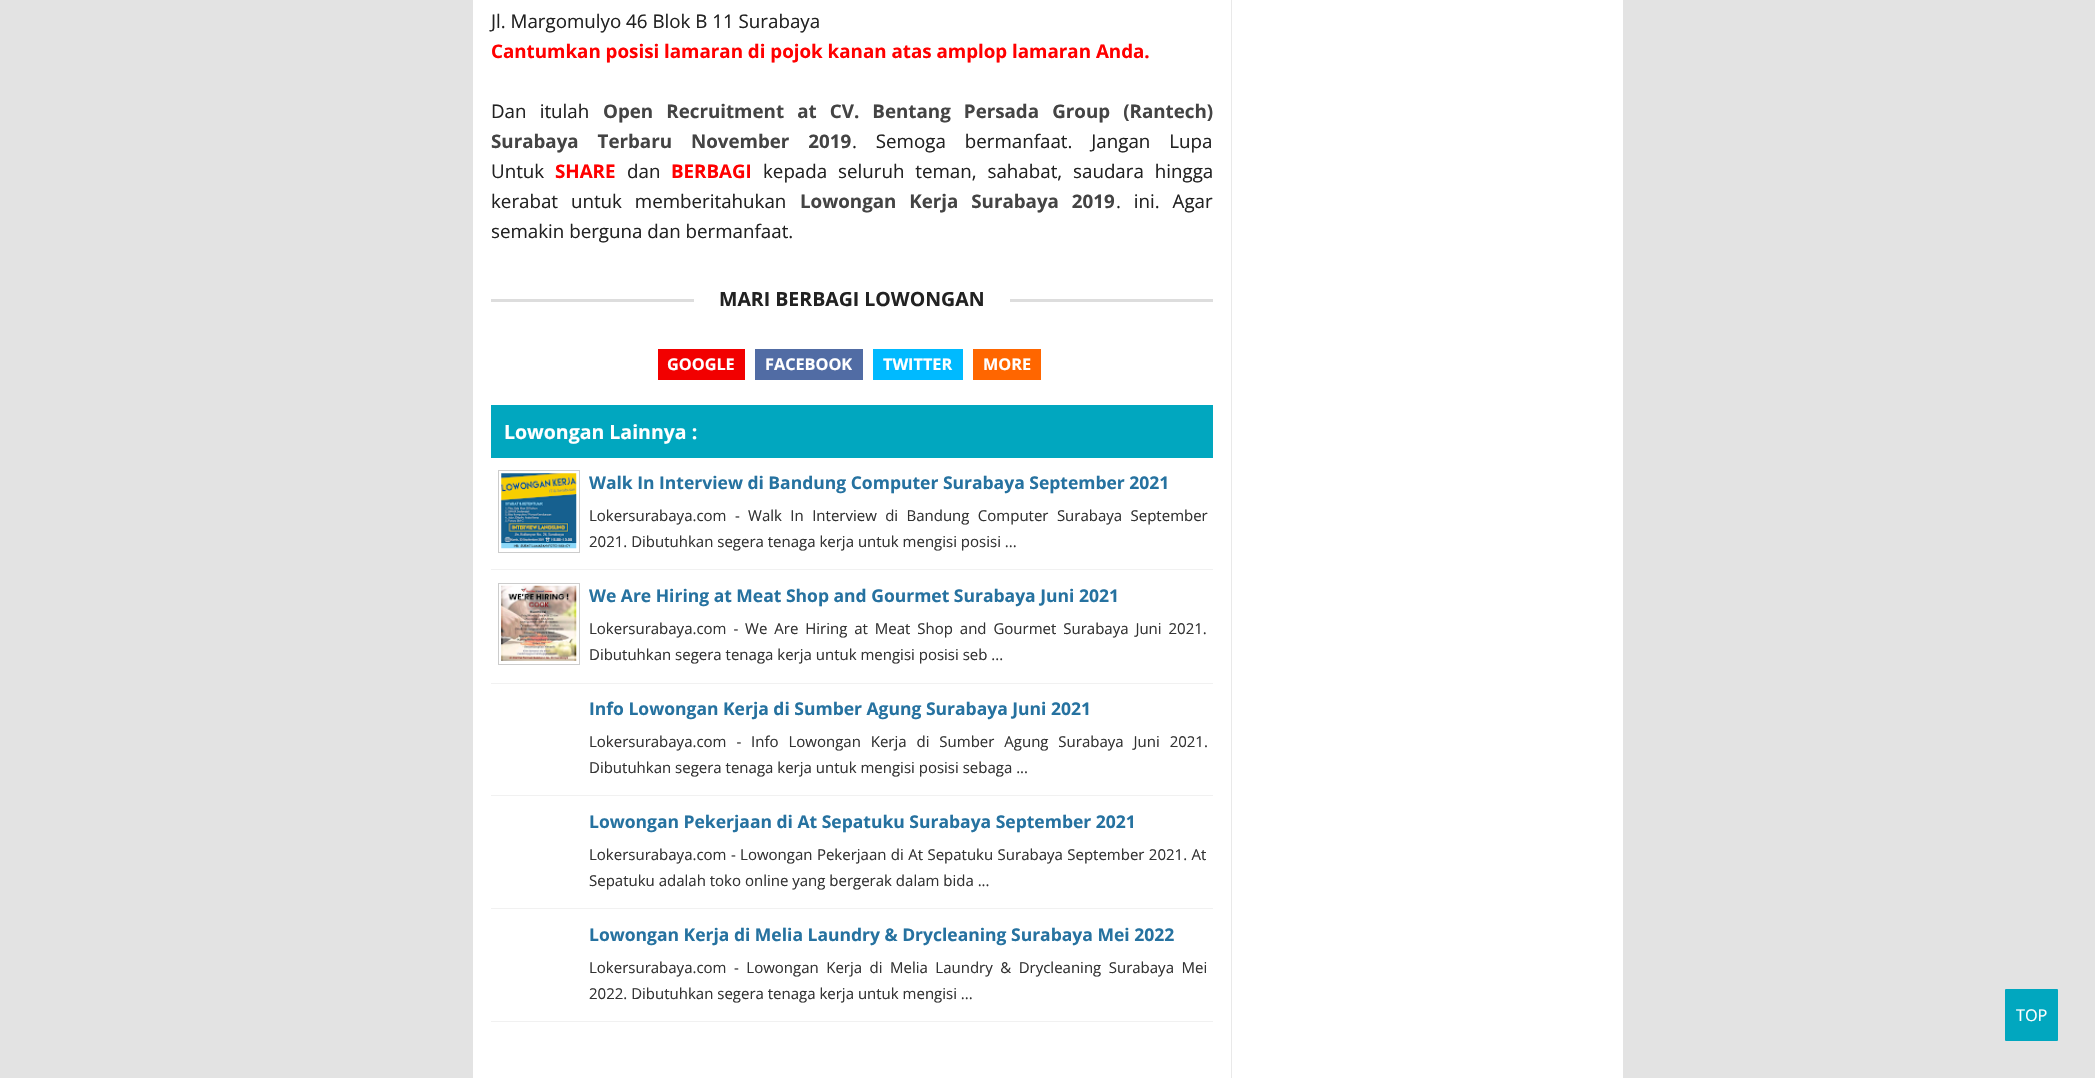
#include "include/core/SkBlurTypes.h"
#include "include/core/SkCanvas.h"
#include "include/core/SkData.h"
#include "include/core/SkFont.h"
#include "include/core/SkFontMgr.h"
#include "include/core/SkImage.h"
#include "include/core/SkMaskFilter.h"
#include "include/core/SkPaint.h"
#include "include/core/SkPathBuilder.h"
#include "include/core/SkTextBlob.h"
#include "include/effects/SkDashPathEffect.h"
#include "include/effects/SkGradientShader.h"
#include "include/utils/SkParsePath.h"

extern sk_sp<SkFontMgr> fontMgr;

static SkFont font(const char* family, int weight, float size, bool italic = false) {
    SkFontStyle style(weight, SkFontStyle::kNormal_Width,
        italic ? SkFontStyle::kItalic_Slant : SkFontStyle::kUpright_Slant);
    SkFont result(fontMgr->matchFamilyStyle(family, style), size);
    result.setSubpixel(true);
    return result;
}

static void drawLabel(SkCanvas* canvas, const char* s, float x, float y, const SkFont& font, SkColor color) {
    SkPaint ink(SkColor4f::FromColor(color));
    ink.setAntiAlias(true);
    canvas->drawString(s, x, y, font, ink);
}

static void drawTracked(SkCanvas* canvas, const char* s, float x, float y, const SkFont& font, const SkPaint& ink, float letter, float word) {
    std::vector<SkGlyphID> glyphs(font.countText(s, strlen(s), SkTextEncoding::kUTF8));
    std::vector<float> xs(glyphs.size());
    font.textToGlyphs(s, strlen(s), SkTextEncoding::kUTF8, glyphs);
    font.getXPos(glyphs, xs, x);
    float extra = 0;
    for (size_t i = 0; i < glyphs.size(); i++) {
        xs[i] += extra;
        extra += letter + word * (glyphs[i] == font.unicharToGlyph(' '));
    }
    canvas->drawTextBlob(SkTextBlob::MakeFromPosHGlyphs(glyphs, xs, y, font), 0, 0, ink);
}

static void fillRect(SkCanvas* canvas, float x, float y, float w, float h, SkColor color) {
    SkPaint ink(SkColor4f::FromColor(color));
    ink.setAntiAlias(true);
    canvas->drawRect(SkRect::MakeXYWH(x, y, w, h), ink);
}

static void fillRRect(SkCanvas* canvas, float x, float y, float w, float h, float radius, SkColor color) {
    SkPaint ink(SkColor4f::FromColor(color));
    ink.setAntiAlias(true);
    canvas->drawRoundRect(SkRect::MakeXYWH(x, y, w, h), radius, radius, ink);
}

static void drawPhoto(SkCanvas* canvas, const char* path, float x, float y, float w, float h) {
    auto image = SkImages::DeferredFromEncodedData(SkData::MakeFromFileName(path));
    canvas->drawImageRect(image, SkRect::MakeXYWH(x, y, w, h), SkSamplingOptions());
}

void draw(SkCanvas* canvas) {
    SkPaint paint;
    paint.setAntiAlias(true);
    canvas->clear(0xFFE3E3E3);
    fillRect(canvas, 473, 0, 1150, 1078, 0xFFFFFFFF);
    fillRect(canvas, 1231, 0, 1, 1078, 0xFFE9E9E9);
    SkFont font1 = font("Open Sans", 400, 18.75f);
    drawLabel(canvas, "Jl. Margomulyo 46 Blok B 11 Surabaya", 491, 28, font1, 0xFF222222);
    SkFont font2 = font("Open Sans", 700, 18.75f);
    drawLabel(canvas, "Cantumkan posisi lamaran di pojok kanan atas amplop lamaran Anda.", 491, 58, font2, 0xFFFF0000);
    paint.setColor(0xFF222222);
    drawTracked(canvas, "Dan itulah", 491, 118, font1, paint, 0, 8.25f);
    paint.setColor(0xFF444444);
    drawTracked(canvas, "Open Recruitment at CV. Bentang Persada Group (Rantech)", 603, 118, font2, paint, 0, 8.25f);
    drawTracked(canvas, "Surabaya Terbaru November 2019", 491, 148, font2, paint, 0, 14);
    paint.setColor(0xFF222222);
    drawTracked(canvas, ". Semoga bermanfaat. Jangan Lupa", 852, 148, font1, paint, 0, 14);
    drawLabel(canvas, "Untuk", 491, 178, font1, 0xFF222222);
    drawLabel(canvas, "SHARE", 555, 178, font2, 0xFFFF0000);
    drawLabel(canvas, "dan", 627, 178, font1, 0xFF222222);
    drawLabel(canvas, "BERBAGI", 671, 178, font2, 0xFFFF0000);
    drawTracked(canvas, "kepada seluruh teman, sahabat, saudara hingga", 763, 178, font1, paint, 0, 6);
    drawTracked(canvas, "kerabat untuk memberitahukan", 491, 208, font1, paint, 0, 8);
    paint.setColor(0xFF444444);
    drawTracked(canvas, "Lowongan Kerja Surabaya 2019", 800, 208, font2, paint, 0, 8);
    paint.setColor(0xFF222222);
    drawTracked(canvas, ". ini. Agar", 1116, 208, font1, paint, 0, 8);
    drawLabel(canvas, "semakin berguna dan bermanfaat.", 491, 238, font1, 0xFF222222);
    fillRect(canvas, 491, 299, 203, 3, 0xFFDDDDDD);
    SkFont font3 = font("Open Sans", 700, 19.5f);
    drawLabel(canvas, "MARI BERBAGI LOWONGAN", 719, 306, font3, 0xFF222222);
    fillRect(canvas, 1010, 299, 203, 3, 0xFFDDDDDD);
    fillRect(canvas, 658, 349, 87, 31, 0xFFF20000);
    SkFont font4 = font("Open Sans", 700, 16.25f);
    drawLabel(canvas, "GOOGLE", 667, 370, font4, 0xFFFFFFFF);
    fillRect(canvas, 755, 349, 108, 31, 0xFF516CA4);
    drawLabel(canvas, "FACEBOOK", 765, 370, font4, 0xFFFFFFFF);
    fillRect(canvas, 873, 349, 90, 31, 0xFF00BAFF);
    drawLabel(canvas, "TWITTER", 883, 370, font4, 0xFFFFFFFF);
    fillRect(canvas, 973, 349, 68, 31, 0xFFFF6600);
    drawLabel(canvas, "MORE", 983, 370, font4, 0xFFFFFFFF);
    fillRect(canvas, 491, 405, 722, 53, 0xFF01A7BF);
    drawLabel(canvas, "Lowongan Lainnya :", 504, 439, font3, 0xFFFFFFFF);
    fillRect(canvas, 491, 569, 722, 1, 0xFFF1F1F1);
    paint.setStroke(true);
    paint.setStrokeWidth(1);
    paint.setColor(0xFFCCCCCC);
    canvas->drawRect(SkRect::MakeXYWH(498.5f, 470.5f, 81, 82), paint);
    drawPhoto(canvas, "assets/img1.png", 501, 473, 76, 76);
    SkFont font5 = font("Open Sans", 700, 17.5f);
    drawLabel(canvas, "Walk In Interview di Bandung Computer Surabaya September 2021", 589, 489, font5, 0xFF2672A0);
    SkFont font6 = font("Open Sans", 400, 15);
    paint.setStroke(false);
    paint.setColor(0xFF333333);
    drawTracked(canvas, "Lokersurabaya.com - Walk In Interview di Bandung Computer Surabaya September", 589, 521, font6, paint, 0, 4.5f);
    drawLabel(canvas, "2021. Dibutuhkan segera tenaga kerja untuk mengisi posisi ...", 589, 547, font6, 0xFF333333);
    fillRect(canvas, 491, 683, 722, 1, 0xFFF1F1F1);
    paint.setStroke(true);
    paint.setColor(0xFFCCCCCC);
    canvas->drawRect(SkRect::MakeXYWH(498.5f, 583.5f, 81, 81), paint);
    drawPhoto(canvas, "assets/img2.png", 501, 585, 76, 76);
    drawLabel(canvas, "We Are Hiring at Meat Shop and Gourmet Surabaya Juni 2021", 589, 602, font5, 0xFF2672A0);
    paint.setStroke(false);
    paint.setColor(0xFF333333);
    drawTracked(canvas, "Lokersurabaya.com - We Are Hiring at Meat Shop and Gourmet Surabaya Juni 2021.", 589, 634, font6, paint, 0, 3);
    drawLabel(canvas, "Dibutuhkan segera tenaga kerja untuk mengisi posisi seb ...", 589, 660, font6, 0xFF333333);
    fillRect(canvas, 491, 795, 722, 1, 0xFFF1F1F1);
    drawLabel(canvas, "Info Lowongan Kerja di Sumber Agung Surabaya Juni 2021", 589, 715, font5, 0xFF2672A0);
    drawTracked(canvas, "Lokersurabaya.com - Info Lowongan Kerja di Sumber Agung Surabaya Juni 2021.", 589, 747, font6, paint, 0, 6);
    drawLabel(canvas, "Dibutuhkan segera tenaga kerja untuk mengisi posisi sebaga ...", 589, 773, font6, 0xFF333333);
    fillRect(canvas, 491, 908, 722, 1, 0xFFF1F1F1);
    drawLabel(canvas, "Lowongan Pekerjaan di At Sepatuku Surabaya September 2021", 589, 828, font5, 0xFF2672A0);
    drawTracked(canvas, "Lokersurabaya.com - Lowongan Pekerjaan di At Sepatuku Surabaya September 2021. At", 589, 860, font6, paint, 0, 0.5f);
    drawLabel(canvas, "Sepatuku adalah toko online yang bergerak dalam bida ...", 589, 886, font6, 0xFF333333);
    fillRect(canvas, 491, 1021, 722, 1, 0xFFF1F1F1);
    drawLabel(canvas, "Lowongan Kerja di Melia Laundry & Drycleaning Surabaya Mei 2022", 589, 941, font5, 0xFF2672A0);
    drawTracked(canvas, "Lokersurabaya.com - Lowongan Kerja di Melia Laundry & Drycleaning Surabaya Mei", 589, 973, font6, paint, 0, 3.6f);
    drawLabel(canvas, "2022. Dibutuhkan segera tenaga kerja untuk mengisi ...", 589, 999, font6, 0xFF333333);
    fillRRect(canvas, 2005, 989, 53, 52, 1, 0xFF01A7BF);
    SkFont font7 = font("Open Sans", 400, 16.25f);
    drawLabel(canvas, "TOP", 2016, 1021, font7, 0xFFFFFFFF);
}
